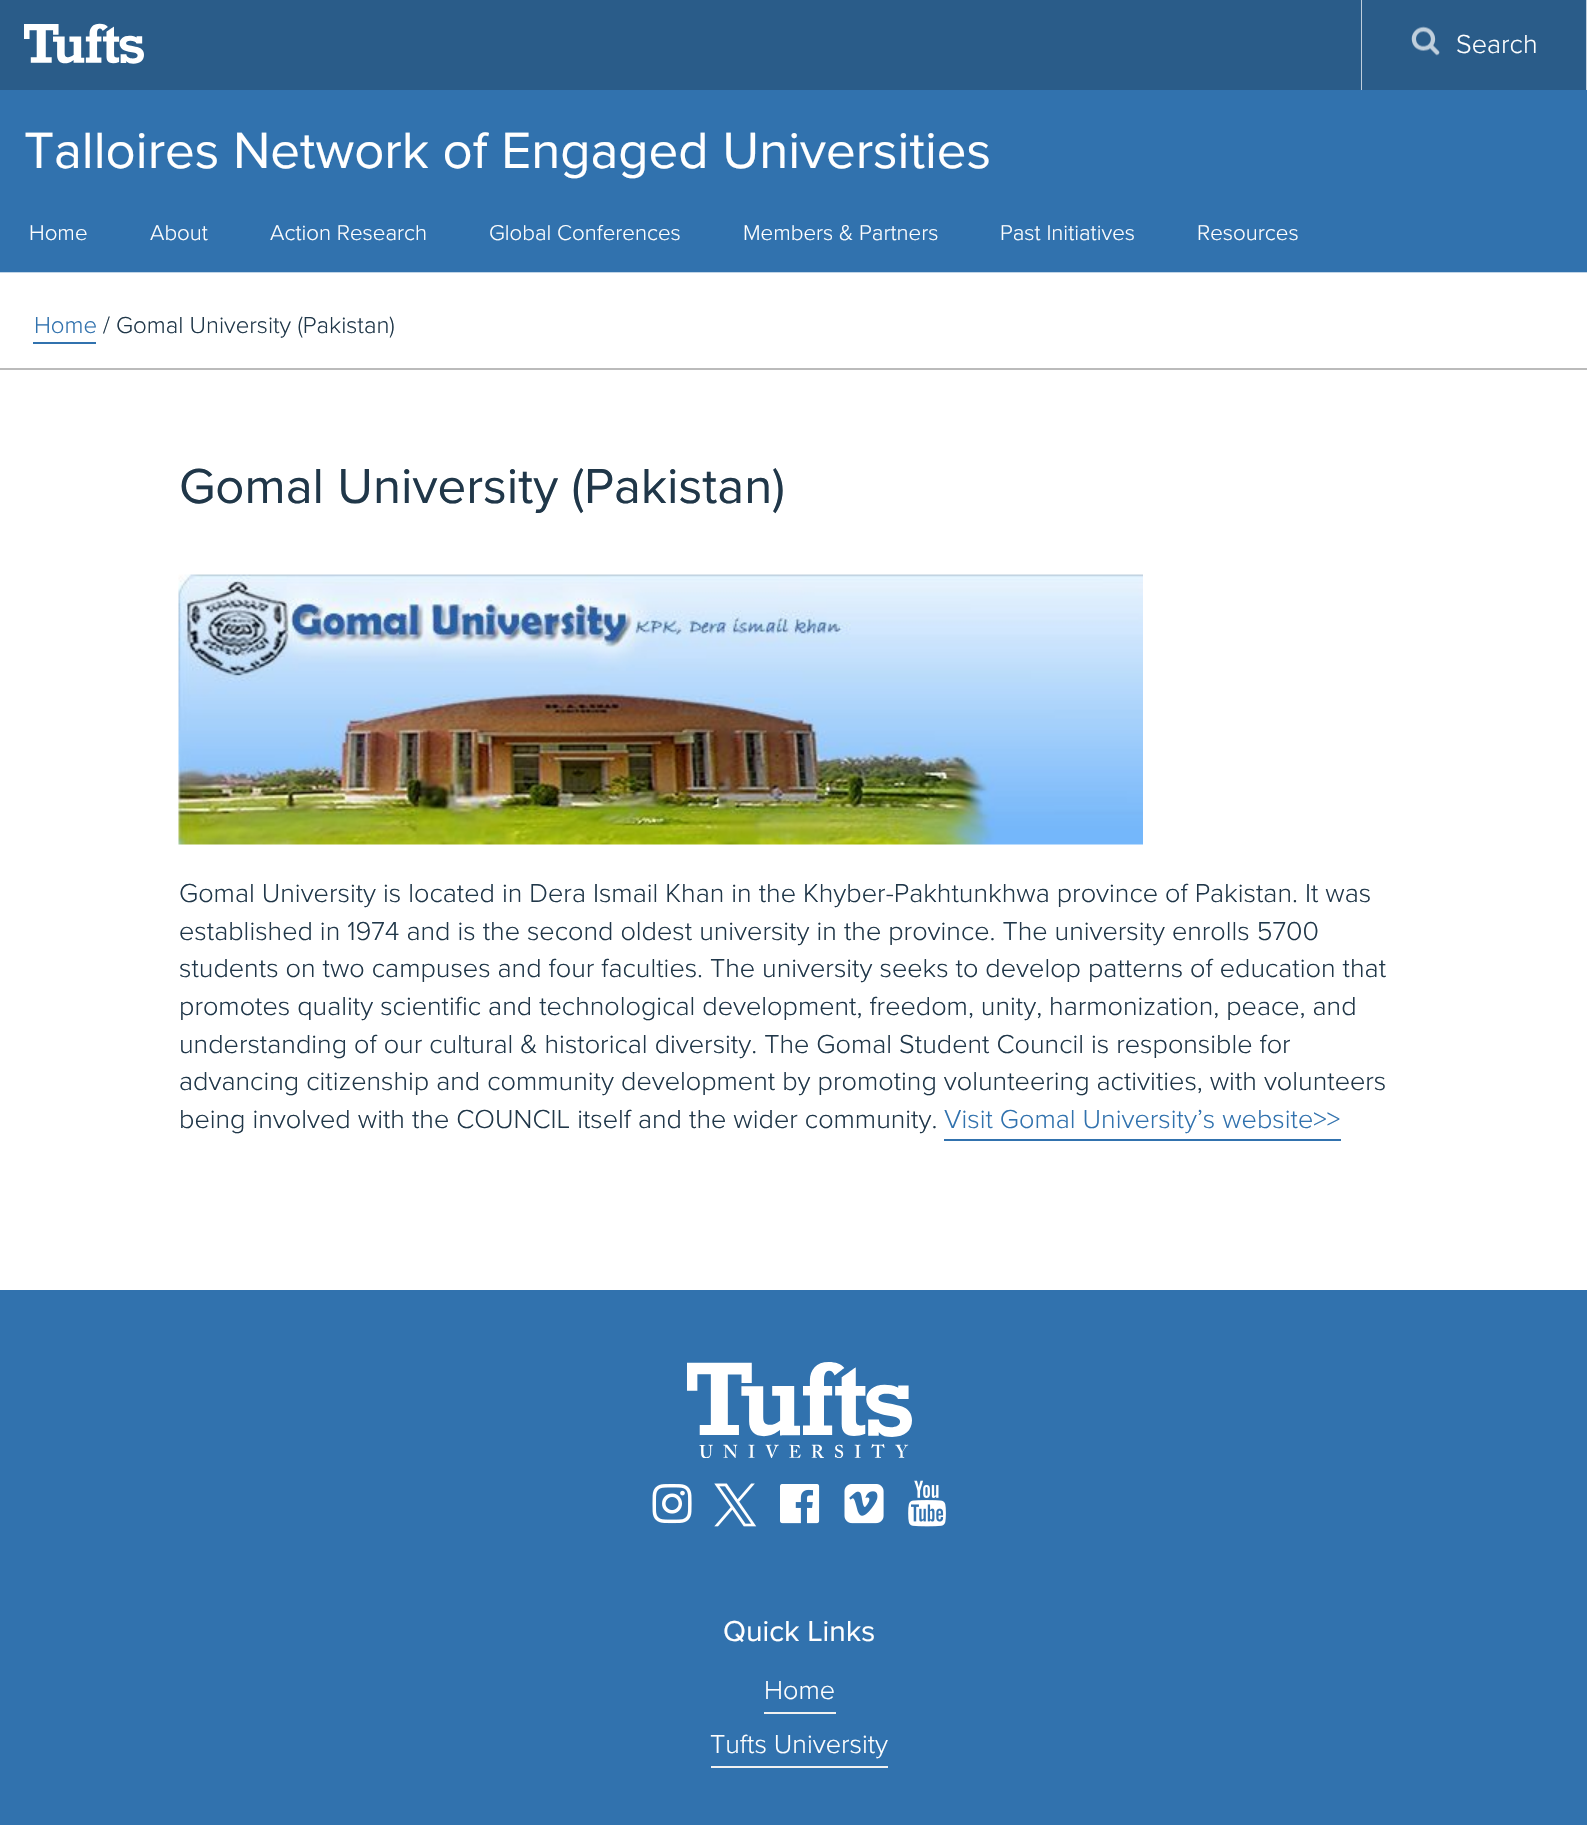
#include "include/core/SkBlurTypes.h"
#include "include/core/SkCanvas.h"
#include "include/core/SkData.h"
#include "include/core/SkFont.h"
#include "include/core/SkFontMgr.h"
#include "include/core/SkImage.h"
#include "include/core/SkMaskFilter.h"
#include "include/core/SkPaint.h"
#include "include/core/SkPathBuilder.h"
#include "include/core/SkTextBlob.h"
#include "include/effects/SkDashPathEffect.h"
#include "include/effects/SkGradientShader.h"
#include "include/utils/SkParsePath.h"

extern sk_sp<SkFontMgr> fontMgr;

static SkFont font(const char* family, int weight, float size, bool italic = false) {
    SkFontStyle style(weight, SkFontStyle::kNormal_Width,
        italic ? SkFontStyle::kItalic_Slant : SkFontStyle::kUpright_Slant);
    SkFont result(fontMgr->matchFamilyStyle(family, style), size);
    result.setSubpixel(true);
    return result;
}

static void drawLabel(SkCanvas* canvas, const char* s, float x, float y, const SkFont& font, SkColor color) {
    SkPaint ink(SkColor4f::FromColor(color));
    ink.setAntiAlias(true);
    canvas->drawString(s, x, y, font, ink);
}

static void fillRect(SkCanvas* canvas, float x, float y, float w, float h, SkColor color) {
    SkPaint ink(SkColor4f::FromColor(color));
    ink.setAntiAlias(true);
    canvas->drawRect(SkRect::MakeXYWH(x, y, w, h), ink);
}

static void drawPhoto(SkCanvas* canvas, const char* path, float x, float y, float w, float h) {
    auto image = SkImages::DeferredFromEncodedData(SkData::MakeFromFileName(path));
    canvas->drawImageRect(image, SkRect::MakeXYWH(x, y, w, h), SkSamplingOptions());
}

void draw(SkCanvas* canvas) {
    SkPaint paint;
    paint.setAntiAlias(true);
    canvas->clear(0xFFFFFFFF);
    fillRect(canvas, 0, 0, 1361, 90, 0xFF2A5C89);
    drawPhoto(canvas, "assets/img1.png", 24, 23, 120, 41);
    fillRect(canvas, 1586, 0, 1, 90, 0xFFBFCEDC);
    fillRect(canvas, 1361, 0, 1, 90, 0xFFBFCEDC);
    fillRect(canvas, 1362, 0, 224, 90, 0xFF2A5C89);
    drawPhoto(canvas, "assets/img2.png", 1411, 26, 29, 30);
    SkFont font1 = font("Proxima Nova", 300, 27);
    drawLabel(canvas, "Search", 1456, 53, font1, 0xFFFFFFFF);
    fillRect(canvas, 0, 90, 1587, 182, 0xFF3172AE);
    SkFont font2 = font("Proxima Nova", 300, 22.25f);
    drawLabel(canvas, "Home", 29, 240, font2, 0xFFFFFFFF);
    drawLabel(canvas, "About", 150, 240, font2, 0xFFFFFFFF);
    drawLabel(canvas, "Action Research", 270, 240, font2, 0xFFFFFFFF);
    drawLabel(canvas, "Global Conferences", 489, 240, font2, 0xFFFFFFFF);
    drawLabel(canvas, "Members & Partners", 743, 240, font2, 0xFFFFFFFF);
    drawLabel(canvas, "Past Initiatives", 1000, 240, font2, 0xFFFFFFFF);
    drawLabel(canvas, "Resources", 1197, 240, font2, 0xFFFFFFFF);
    fillRect(canvas, 0, 272, 1587, 1, 0xFFC1D5E7);
    SkFont font3 = font("Proxima Nova", 400, 52.75f);
    drawLabel(canvas, "Talloires Network of Engaged Universities", 24, 168, font3, 0xFFFFFFFF);
    fillRect(canvas, 0, 368, 1587, 2, 0xFFBBBBBB);
    SkFont font4 = font("Proxima Nova", 300, 24);
    drawLabel(canvas, "Home", 34, 333, font4, 0xFF3172AE);
    fillRect(canvas, 33, 342, 63, 2, 0xFF3172AE);
    drawLabel(canvas, "/ Gomal University (Pakistan)", 103, 333, font4, 0xFF203749);
    SkFont font5 = font("Proxima Nova", 400, 51);
    drawLabel(canvas, "Gomal University (Pakistan)", 179, 503, font5, 0xFF203749);
    drawPhoto(canvas, "assets/img3.png", 178, 574, 965, 271);
    drawLabel(canvas, "Gomal University is located in Dera Ismail Khan in the Khyber-Pakhtunkhwa province of Pakistan. It was", 179, 902, font1, 0xFF203749);
    drawLabel(canvas, "established in 1974 and is the second oldest university in the province. The university enrolls 5700", 179, 940, font1, 0xFF203749);
    drawLabel(canvas, "students on two campuses and four faculties. The university seeks to develop patterns of education that", 179, 977, font1, 0xFF203749);
    drawLabel(canvas, "promotes quality scientific and technological development, freedom, unity, harmonization, peace, and", 179, 1015, font1, 0xFF203749);
    drawLabel(canvas, "understanding of our cultural & historical diversity. The Gomal Student Council is responsible for", 179, 1053, font1, 0xFF203749);
    drawLabel(canvas, "advancing citizenship and community development by promoting volunteering activities, with volunteers", 179, 1090, font1, 0xFF203749);
    drawLabel(canvas, "being involved with the COUNCIL itself and the wider community.", 179, 1128, font1, 0xFF203749);
    drawLabel(canvas, "Visit Gomal University’s website>>", 944, 1128, font1, 0xFF3172AE);
    fillRect(canvas, 944, 1139, 397, 2, 0xFF3172AE);
    fillRect(canvas, 0, 1290, 1587, 535, 0xFF3172AE);
    drawPhoto(canvas, "assets/img4.png", 687, 1362, 225, 96);
    drawPhoto(canvas, "assets/img5.png", 652, 1484, 40, 40);
    drawPhoto(canvas, "assets/img6.png", 714, 1483, 43, 44);
    drawPhoto(canvas, "assets/img7.png", 780, 1484, 40, 40);
    drawPhoto(canvas, "assets/img8.png", 844, 1484, 40, 40);
    drawPhoto(canvas, "assets/img9.png", 908, 1480, 38, 47);
    SkFont font6 = font("Proxima Nova", 400, 30);
    drawLabel(canvas, "Quick Links", 723, 1641, font6, 0xFFFFFFFF);
    drawLabel(canvas, "Home", 764, 1699, font1, 0xFFFFFFFF);
    fillRect(canvas, 764, 1712, 72, 2, 0xFFF1F1F1);
    drawLabel(canvas, "Tufts University", 710, 1753, font1, 0xFFFFFFFF);
    fillRect(canvas, 711, 1766, 177, 2, 0xFFF1F1F1);
}
